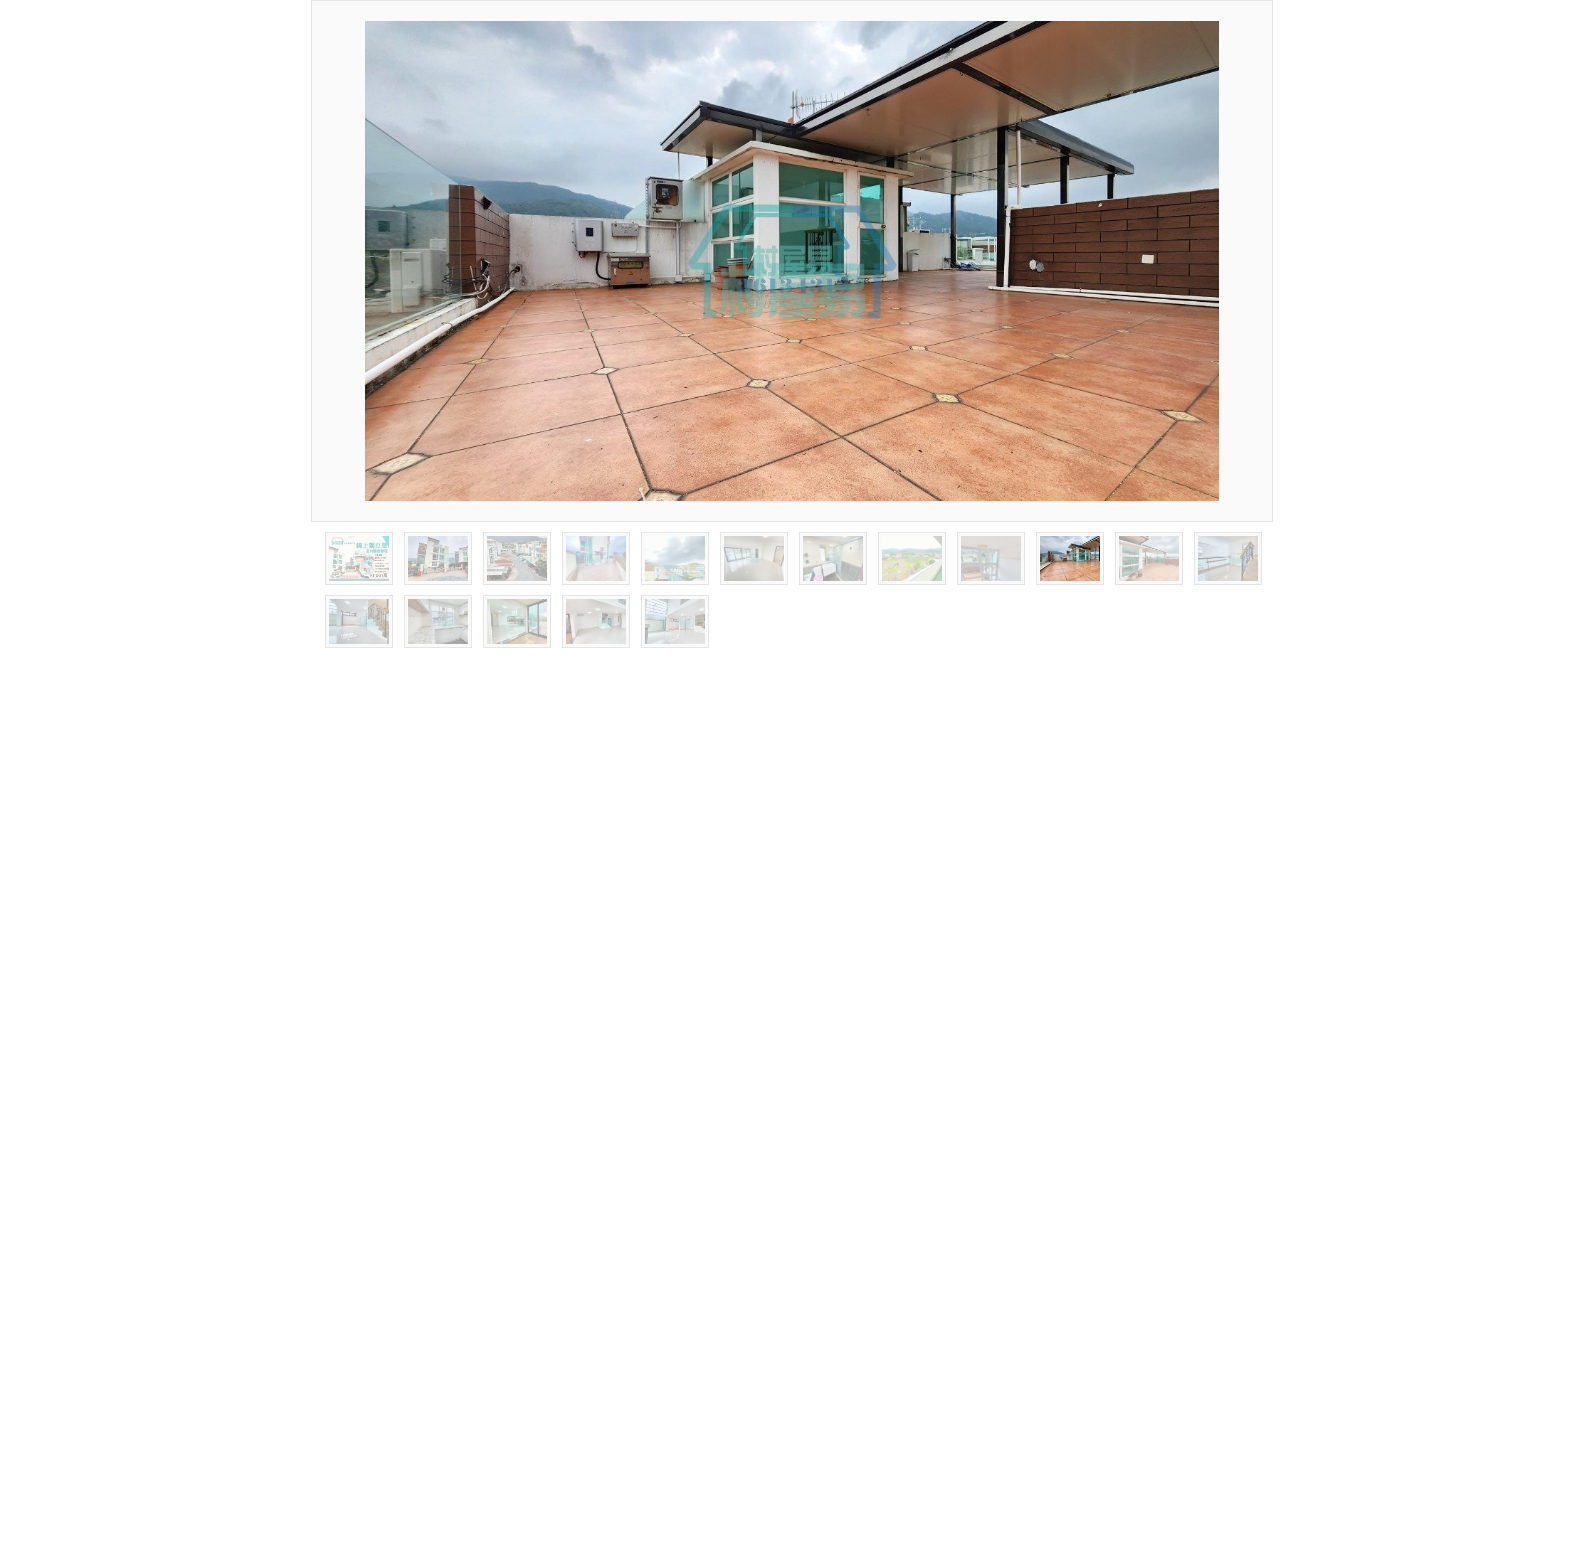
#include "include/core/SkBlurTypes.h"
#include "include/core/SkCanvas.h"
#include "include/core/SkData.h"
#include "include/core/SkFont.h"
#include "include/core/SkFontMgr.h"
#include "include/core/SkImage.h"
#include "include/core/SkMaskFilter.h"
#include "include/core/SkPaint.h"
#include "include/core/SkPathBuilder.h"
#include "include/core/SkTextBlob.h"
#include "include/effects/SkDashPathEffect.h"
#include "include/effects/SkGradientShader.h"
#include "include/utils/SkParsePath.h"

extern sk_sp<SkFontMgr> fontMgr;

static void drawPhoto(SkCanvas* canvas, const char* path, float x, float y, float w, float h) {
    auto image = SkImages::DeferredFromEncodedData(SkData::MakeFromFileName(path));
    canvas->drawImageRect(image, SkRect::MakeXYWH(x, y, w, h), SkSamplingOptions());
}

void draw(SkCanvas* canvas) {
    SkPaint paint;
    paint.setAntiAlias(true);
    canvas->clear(0xFFFFFFFF);
    paint.setColor(0xFFFAFAFA);
    canvas->drawRect(SkRect::MakeXYWH(311.5f, 0.5f, 961, 521), paint);
    paint.setStroke(true);
    paint.setStrokeWidth(1);
    paint.setColor(0xFFE5E5E5);
    canvas->drawRect(SkRect::MakeXYWH(311.5f, 0.5f, 961, 521), paint);
    drawPhoto(canvas, "assets/img1.png", 365, 21, 854, 480);
    paint.setStroke(false);
    paint.setColor(0xFFFAFAFA);
    canvas->drawRect(SkRect::MakeXYWH(325.5f, 532.5f, 67, 52), paint);
    paint.setStroke(true);
    paint.setColor(0xFFE5E5E5);
    canvas->drawRect(SkRect::MakeXYWH(325.5f, 532.5f, 67, 52), paint);
    drawPhoto(canvas, "assets/img2.png", 329, 536, 60, 45);
    paint.setStroke(false);
    paint.setColor(0xFFFAFAFA);
    canvas->drawRect(SkRect::MakeXYWH(404.5f, 532.5f, 67, 52), paint);
    paint.setStroke(true);
    paint.setColor(0xFFE5E5E5);
    canvas->drawRect(SkRect::MakeXYWH(404.5f, 532.5f, 67, 52), paint);
    drawPhoto(canvas, "assets/img3.png", 408, 536, 60, 45);
    paint.setStroke(false);
    paint.setColor(0xFFFAFAFA);
    canvas->drawRect(SkRect::MakeXYWH(483.5f, 532.5f, 67, 52), paint);
    paint.setStroke(true);
    paint.setColor(0xFFE5E5E5);
    canvas->drawRect(SkRect::MakeXYWH(483.5f, 532.5f, 67, 52), paint);
    drawPhoto(canvas, "assets/img4.png", 487, 536, 60, 45);
    paint.setStroke(false);
    paint.setColor(0xFFFAFAFA);
    canvas->drawRect(SkRect::MakeXYWH(562.5f, 532.5f, 67, 52), paint);
    paint.setStroke(true);
    paint.setColor(0xFFE5E5E5);
    canvas->drawRect(SkRect::MakeXYWH(562.5f, 532.5f, 67, 52), paint);
    drawPhoto(canvas, "assets/img5.png", 566, 536, 60, 45);
    paint.setStroke(false);
    paint.setColor(0xFFFAFAFA);
    canvas->drawRect(SkRect::MakeXYWH(641.5f, 532.5f, 67, 52), paint);
    paint.setStroke(true);
    paint.setColor(0xFFE5E5E5);
    canvas->drawRect(SkRect::MakeXYWH(641.5f, 532.5f, 67, 52), paint);
    drawPhoto(canvas, "assets/img6.png", 645, 536, 60, 45);
    paint.setStroke(false);
    paint.setColor(0xFFFAFAFA);
    canvas->drawRect(SkRect::MakeXYWH(720.5f, 532.5f, 67, 52), paint);
    paint.setStroke(true);
    paint.setColor(0xFFE5E5E5);
    canvas->drawRect(SkRect::MakeXYWH(720.5f, 532.5f, 67, 52), paint);
    drawPhoto(canvas, "assets/img7.png", 724, 536, 60, 45);
    paint.setStroke(false);
    paint.setColor(0xFFFAFAFA);
    canvas->drawRect(SkRect::MakeXYWH(799.5f, 532.5f, 67, 52), paint);
    paint.setStroke(true);
    paint.setColor(0xFFE5E5E5);
    canvas->drawRect(SkRect::MakeXYWH(799.5f, 532.5f, 67, 52), paint);
    drawPhoto(canvas, "assets/img8.png", 803, 536, 60, 45);
    paint.setStroke(false);
    paint.setColor(0xFFFAFAFA);
    canvas->drawRect(SkRect::MakeXYWH(878.5f, 532.5f, 67, 52), paint);
    paint.setStroke(true);
    paint.setColor(0xFFE5E5E5);
    canvas->drawRect(SkRect::MakeXYWH(878.5f, 532.5f, 67, 52), paint);
    drawPhoto(canvas, "assets/img9.png", 882, 536, 60, 45);
    paint.setStroke(false);
    paint.setColor(0xFFFAFAFA);
    canvas->drawRect(SkRect::MakeXYWH(957.5f, 532.5f, 67, 52), paint);
    paint.setStroke(true);
    paint.setColor(0xFFE5E5E5);
    canvas->drawRect(SkRect::MakeXYWH(957.5f, 532.5f, 67, 52), paint);
    drawPhoto(canvas, "assets/img10.png", 961, 536, 60, 45);
    paint.setStroke(false);
    paint.setColor(0xFFFAFAFA);
    canvas->drawRect(SkRect::MakeXYWH(1036.5f, 532.5f, 67, 52), paint);
    paint.setStroke(true);
    paint.setColor(0xFFE5E5E5);
    canvas->drawRect(SkRect::MakeXYWH(1036.5f, 532.5f, 67, 52), paint);
    drawPhoto(canvas, "assets/img11.png", 1040, 536, 60, 45);
    paint.setStroke(false);
    paint.setColor(0xFFFAFAFA);
    canvas->drawRect(SkRect::MakeXYWH(1115.5f, 532.5f, 67, 52), paint);
    paint.setStroke(true);
    paint.setColor(0xFFE5E5E5);
    canvas->drawRect(SkRect::MakeXYWH(1115.5f, 532.5f, 67, 52), paint);
    drawPhoto(canvas, "assets/img12.png", 1119, 536, 60, 45);
    paint.setStroke(false);
    paint.setColor(0xFFFAFAFA);
    canvas->drawRect(SkRect::MakeXYWH(1194.5f, 532.5f, 67, 52), paint);
    paint.setStroke(true);
    paint.setColor(0xFFE5E5E5);
    canvas->drawRect(SkRect::MakeXYWH(1194.5f, 532.5f, 67, 52), paint);
    drawPhoto(canvas, "assets/img13.png", 1198, 536, 60, 45);
    paint.setStroke(false);
    paint.setColor(0xFFFAFAFA);
    canvas->drawRect(SkRect::MakeXYWH(325.5f, 595.5f, 67, 52), paint);
    paint.setStroke(true);
    paint.setColor(0xFFE5E5E5);
    canvas->drawRect(SkRect::MakeXYWH(325.5f, 595.5f, 67, 52), paint);
    drawPhoto(canvas, "assets/img14.png", 329, 599, 60, 45);
    paint.setStroke(false);
    paint.setColor(0xFFFAFAFA);
    canvas->drawRect(SkRect::MakeXYWH(404.5f, 595.5f, 67, 52), paint);
    paint.setStroke(true);
    paint.setColor(0xFFE5E5E5);
    canvas->drawRect(SkRect::MakeXYWH(404.5f, 595.5f, 67, 52), paint);
    drawPhoto(canvas, "assets/img15.png", 408, 599, 60, 45);
    paint.setStroke(false);
    paint.setColor(0xFFFAFAFA);
    canvas->drawRect(SkRect::MakeXYWH(483.5f, 595.5f, 67, 52), paint);
    paint.setStroke(true);
    paint.setColor(0xFFE5E5E5);
    canvas->drawRect(SkRect::MakeXYWH(483.5f, 595.5f, 67, 52), paint);
    drawPhoto(canvas, "assets/img16.png", 487, 599, 60, 45);
    paint.setStroke(false);
    paint.setColor(0xFFFAFAFA);
    canvas->drawRect(SkRect::MakeXYWH(562.5f, 595.5f, 67, 52), paint);
    paint.setStroke(true);
    paint.setColor(0xFFE5E5E5);
    canvas->drawRect(SkRect::MakeXYWH(562.5f, 595.5f, 67, 52), paint);
    drawPhoto(canvas, "assets/img17.png", 566, 599, 60, 45);
    paint.setStroke(false);
    paint.setColor(0xFFFAFAFA);
    canvas->drawRect(SkRect::MakeXYWH(641.5f, 595.5f, 67, 52), paint);
    paint.setStroke(true);
    paint.setColor(0xFFE5E5E5);
    canvas->drawRect(SkRect::MakeXYWH(641.5f, 595.5f, 67, 52), paint);
    drawPhoto(canvas, "assets/img18.png", 645, 599, 60, 45);
}
